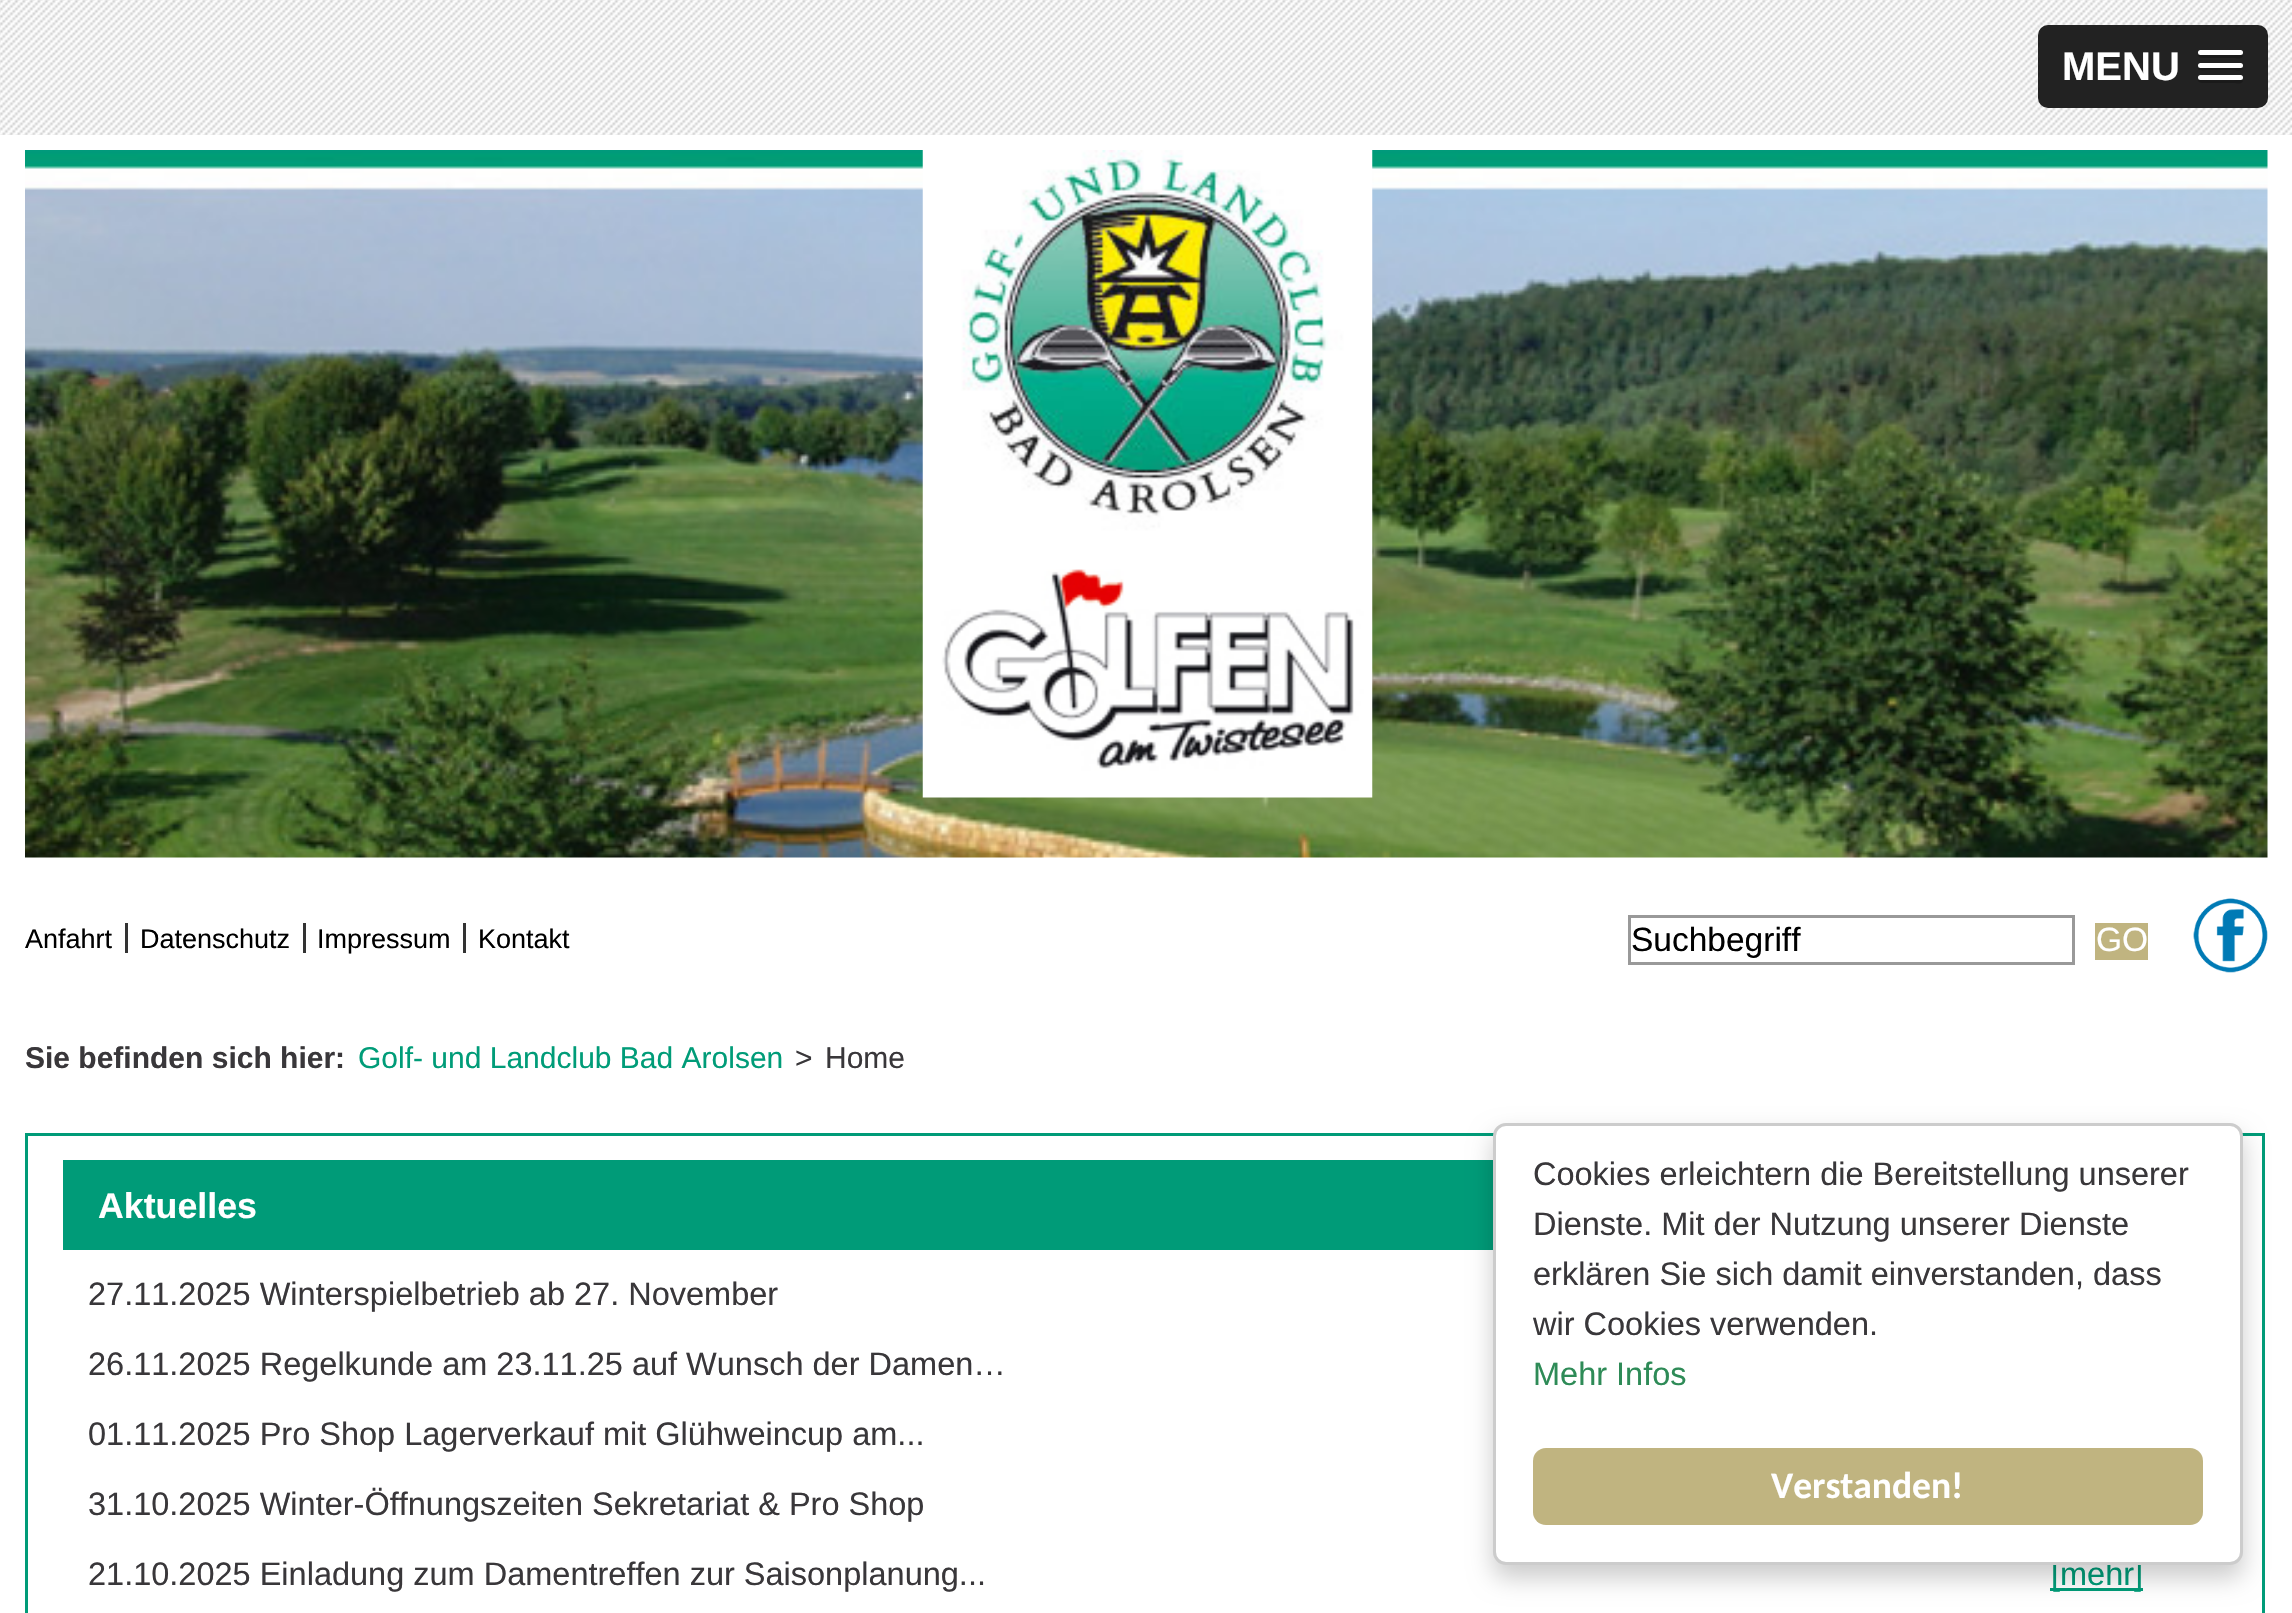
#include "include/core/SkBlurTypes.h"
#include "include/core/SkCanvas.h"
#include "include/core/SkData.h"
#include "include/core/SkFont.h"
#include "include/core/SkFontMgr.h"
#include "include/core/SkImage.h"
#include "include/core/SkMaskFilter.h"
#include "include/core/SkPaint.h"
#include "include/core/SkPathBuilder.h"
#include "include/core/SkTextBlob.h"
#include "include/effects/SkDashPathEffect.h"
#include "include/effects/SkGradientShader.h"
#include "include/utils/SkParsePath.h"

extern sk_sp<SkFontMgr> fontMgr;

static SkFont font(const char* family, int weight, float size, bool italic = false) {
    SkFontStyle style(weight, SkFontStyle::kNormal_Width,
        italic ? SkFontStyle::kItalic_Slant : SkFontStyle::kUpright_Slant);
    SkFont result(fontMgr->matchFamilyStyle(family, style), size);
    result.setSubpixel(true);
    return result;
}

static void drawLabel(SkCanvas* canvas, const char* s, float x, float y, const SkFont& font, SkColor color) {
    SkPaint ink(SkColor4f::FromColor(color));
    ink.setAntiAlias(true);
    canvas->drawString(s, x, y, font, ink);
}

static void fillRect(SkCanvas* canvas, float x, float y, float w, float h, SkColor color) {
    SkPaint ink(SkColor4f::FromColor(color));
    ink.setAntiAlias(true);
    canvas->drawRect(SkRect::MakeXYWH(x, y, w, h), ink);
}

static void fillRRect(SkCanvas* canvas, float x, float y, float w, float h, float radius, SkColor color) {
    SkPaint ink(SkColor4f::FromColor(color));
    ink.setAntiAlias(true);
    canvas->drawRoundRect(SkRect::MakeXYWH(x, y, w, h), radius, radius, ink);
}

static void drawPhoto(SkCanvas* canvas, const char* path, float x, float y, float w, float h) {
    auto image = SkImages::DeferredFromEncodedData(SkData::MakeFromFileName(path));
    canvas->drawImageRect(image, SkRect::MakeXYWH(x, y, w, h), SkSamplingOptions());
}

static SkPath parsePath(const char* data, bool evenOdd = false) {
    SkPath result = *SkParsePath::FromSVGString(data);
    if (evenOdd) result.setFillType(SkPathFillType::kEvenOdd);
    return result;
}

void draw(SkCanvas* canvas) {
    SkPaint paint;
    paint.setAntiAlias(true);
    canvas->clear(0xFFFFFFFF);
    drawPhoto(canvas, "assets/img1.png", 0, 0, 2292, 135);
    fillRRect(canvas, 2038, 25, 230, 83, 10, 0xFF222222);
    SkFont font1 = font("Liberation Sans", 700, 40);
    drawLabel(canvas, "MENU", 2062, 80, font1, 0xFFFFFFFF);
    paint.setColor(0xFF1A1A1A);
    canvas->drawPath(parsePath("M2198 54C2196 59 2207 58 2207 58H2234C2235 58 2242 60 2243 56L2242 54L2240 55C2237 55 2200 56 2198 54Z"), paint);
    fillRRect(canvas, 2198, 50, 45, 5, 2.5f, 0xFFFFFFFF);
    canvas->drawPath(parsePath("M2198 67C2196 72 2206 70 2207 70H2234C2235 70 2242 72 2243 68L2242 66L2240 67H2200Z"), paint);
    fillRRect(canvas, 2198, 63, 45, 5, 2.5f, 0xFFFFFFFF);
    canvas->drawPath(parsePath("M2198 79C2196 84 2207 83 2207 83H2234C2235 83 2242 85 2243 81L2242 79L2240 80C2237 80 2200 81 2198 79Z"), paint);
    fillRRect(canvas, 2198, 75, 45, 5, 2.5f, 0xFFFFFFFF);
    drawPhoto(canvas, "assets/img2.png", 25, 150, 2243, 708);
    drawPhoto(canvas, "assets/img3.png", 922, 150, 451, 648);
    SkFont font2 = font("Liberation Sans", 400, 27);
    drawLabel(canvas, "Anfahrt", 25, 948, font2, 0xFF000000);
    fillRect(canvas, 125, 923, 3, 30, 0xFF333333);
    drawLabel(canvas, "Datenschutz", 140, 948, font2, 0xFF000000);
    fillRect(canvas, 303, 923, 3, 30, 0xFF333333);
    drawLabel(canvas, "Impressum", 317, 948, font2, 0xFF000000);
    fillRect(canvas, 463, 923, 3, 30, 0xFF333333);
    drawLabel(canvas, "Kontakt", 478, 948, font2, 0xFF000000);
    paint.setStroke(true);
    paint.setStrokeWidth(3);
    paint.setColor(0xFF999999);
    canvas->drawRect(SkRect::MakeXYWH(1629.5f, 916.5f, 444, 47), paint);
    SkFont font3 = font("Liberation Sans", 400, 33.5f);
    drawLabel(canvas, "Suchbegriff", 1631, 951, font3, 0xFF000000);
    fillRect(canvas, 2095, 923, 53, 37, 0xFFC0B480);
    drawLabel(canvas, "GO", 2096, 951, font3, 0xFFFFFFFF);
    drawPhoto(canvas, "assets/img4.png", 2193, 898, 75, 75);
    SkFont font4 = font("Liberation Sans", 700, 30);
    drawLabel(canvas, "Sie befinden sich hier:", 25, 1068, font4, 0xFF39373A);
    SkFont font5 = font("Liberation Sans", 400, 30);
    drawLabel(canvas, "Golf- und Landclub Bad Arolsen", 358, 1068, font5, 0xFF009C78);
    drawLabel(canvas, ">", 795, 1068, font5, 0xFF39373A);
    drawLabel(canvas, "Home", 825, 1068, font5, 0xFF39373A);
    paint.setColor(0xFF009B78);
    canvas->drawRect(SkRect::MakeXYWH(26.5f, 1134.5f, 2237, 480), paint);
    fillRect(canvas, 63, 1160, 1430, 90, 0xFF009B78);
    SkFont font6 = font("Liberation Sans", 700, 35.75f);
    drawLabel(canvas, "Aktuelles", 98, 1218, font6, 0xFFFFFFFF);
    SkFont font7 = font("Liberation Sans", 400, 32.5f);
    drawLabel(canvas, "27.11.2025 Winterspielbetrieb ab 27. November", 88, 1305, font7, 0xFF39373A);
    drawLabel(canvas, "26.11.2025 Regelkunde am 23.11.25 auf Wunsch der Damen…", 88, 1375, font7, 0xFF39373A);
    drawLabel(canvas, "01.11.2025 Pro Shop Lagerverkauf mit Glühweincup am...", 88, 1445, font7, 0xFF39373A);
    drawLabel(canvas, "31.10.2025 Winter-Öffnungszeiten Sekretariat & Pro Shop", 88, 1515, font7, 0xFF39373A);
    drawLabel(canvas, "21.10.2025 Einladung zum Damentreffen zur Saisonplanung...", 88, 1585, font7, 0xFF39373A);
    fillRect(canvas, 2050, 1588, 93, 3, 0xFF009C78);
    drawLabel(canvas, "[mehr]", 2051, 1585, font7, 0xFF009C78);
    paint.setStroke(false);
    paint.setColor(0x33000000);
    paint.setMaskFilter(SkMaskFilter::MakeBlur(kNormal_SkBlurStyle, 12.5f));
    canvas->drawRoundRect(SkRect::MakeXYWH(1493, 1135, 750, 443), 13, 13, paint);
    paint.setMaskFilter(nullptr);
    paint.setColor(0xFFFFFFFF);
    canvas->drawRoundRect(SkRect::MakeXYWH(1494.5f, 1124.5f, 747, 439), 11.5f, 11.5f, paint);
    paint.setStroke(true);
    paint.setColor(0xFFCCCCCC);
    canvas->drawRoundRect(SkRect::MakeXYWH(1494.5f, 1124.5f, 747, 439), 11.5f, 11.5f, paint);
    drawLabel(canvas, "Cookies erleichtern die Bereitstellung unserer", 1533, 1185, font7, 0xFF39373A);
    drawLabel(canvas, "Dienste. Mit der Nutzung unserer Dienste", 1533, 1235, font7, 0xFF39373A);
    drawLabel(canvas, "erklären Sie sich damit einverstanden, dass", 1533, 1285, font7, 0xFF39373A);
    drawLabel(canvas, "wir Cookies verwenden.", 1533, 1335, font7, 0xFF39373A);
    drawLabel(canvas, "Mehr Infos", 1533, 1385, font7, 0xFF2E8B57);
    fillRRect(canvas, 1533, 1448, 670, 77, 13, 0xFFC0B480);
    SkFont font8 = font("Carlito", 700, 37.5f);
    drawLabel(canvas, "Verstanden!", 1771, 1498, font8, 0xFFFFFFFF);
}
